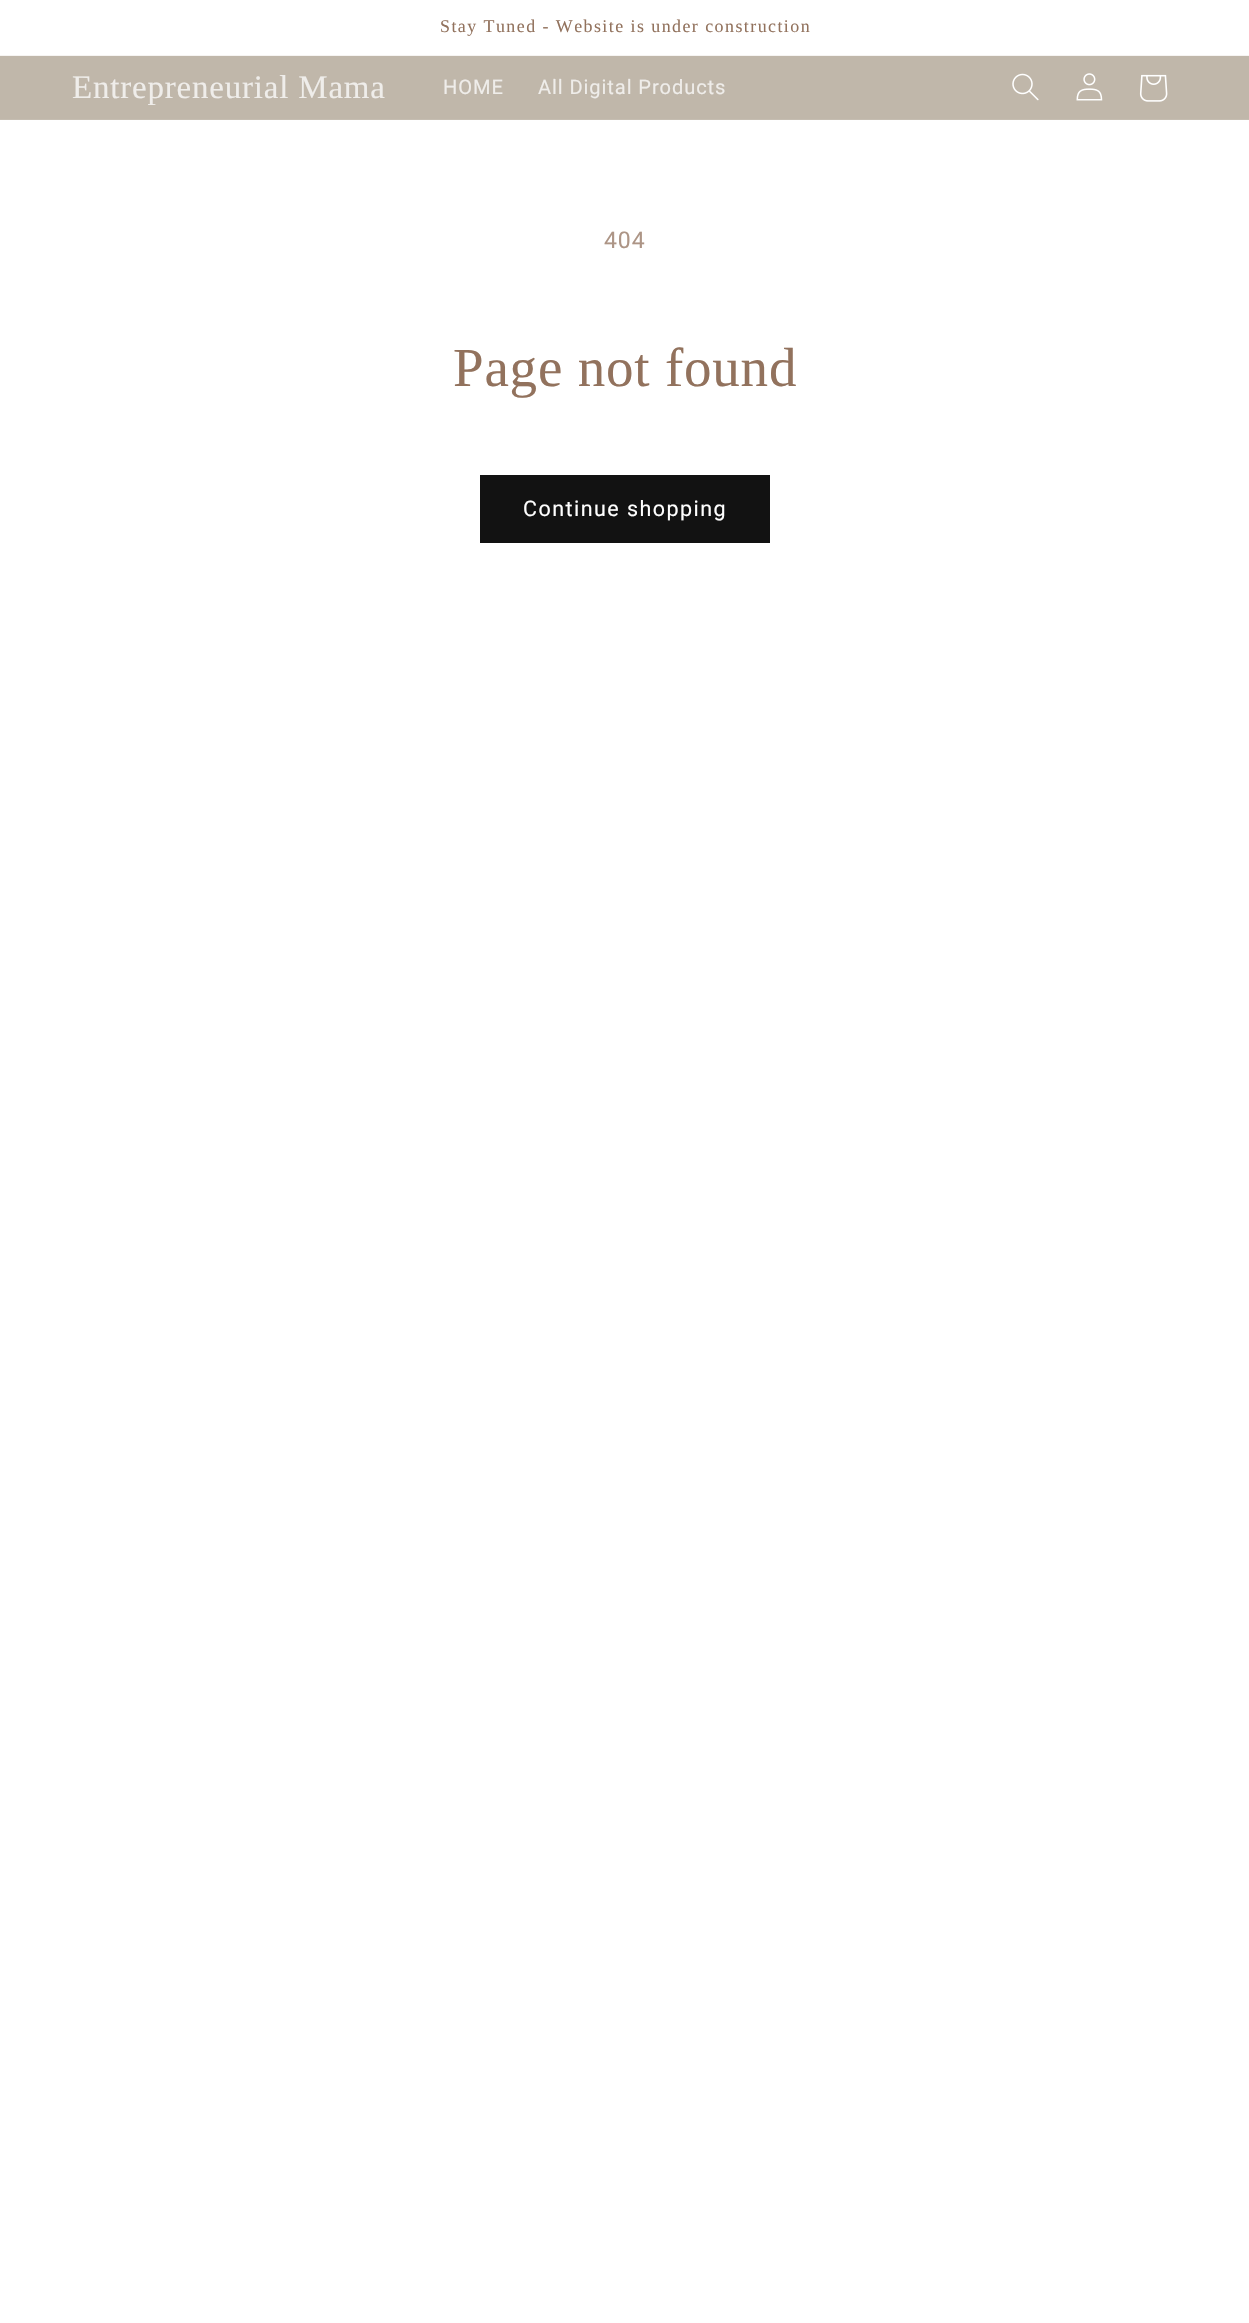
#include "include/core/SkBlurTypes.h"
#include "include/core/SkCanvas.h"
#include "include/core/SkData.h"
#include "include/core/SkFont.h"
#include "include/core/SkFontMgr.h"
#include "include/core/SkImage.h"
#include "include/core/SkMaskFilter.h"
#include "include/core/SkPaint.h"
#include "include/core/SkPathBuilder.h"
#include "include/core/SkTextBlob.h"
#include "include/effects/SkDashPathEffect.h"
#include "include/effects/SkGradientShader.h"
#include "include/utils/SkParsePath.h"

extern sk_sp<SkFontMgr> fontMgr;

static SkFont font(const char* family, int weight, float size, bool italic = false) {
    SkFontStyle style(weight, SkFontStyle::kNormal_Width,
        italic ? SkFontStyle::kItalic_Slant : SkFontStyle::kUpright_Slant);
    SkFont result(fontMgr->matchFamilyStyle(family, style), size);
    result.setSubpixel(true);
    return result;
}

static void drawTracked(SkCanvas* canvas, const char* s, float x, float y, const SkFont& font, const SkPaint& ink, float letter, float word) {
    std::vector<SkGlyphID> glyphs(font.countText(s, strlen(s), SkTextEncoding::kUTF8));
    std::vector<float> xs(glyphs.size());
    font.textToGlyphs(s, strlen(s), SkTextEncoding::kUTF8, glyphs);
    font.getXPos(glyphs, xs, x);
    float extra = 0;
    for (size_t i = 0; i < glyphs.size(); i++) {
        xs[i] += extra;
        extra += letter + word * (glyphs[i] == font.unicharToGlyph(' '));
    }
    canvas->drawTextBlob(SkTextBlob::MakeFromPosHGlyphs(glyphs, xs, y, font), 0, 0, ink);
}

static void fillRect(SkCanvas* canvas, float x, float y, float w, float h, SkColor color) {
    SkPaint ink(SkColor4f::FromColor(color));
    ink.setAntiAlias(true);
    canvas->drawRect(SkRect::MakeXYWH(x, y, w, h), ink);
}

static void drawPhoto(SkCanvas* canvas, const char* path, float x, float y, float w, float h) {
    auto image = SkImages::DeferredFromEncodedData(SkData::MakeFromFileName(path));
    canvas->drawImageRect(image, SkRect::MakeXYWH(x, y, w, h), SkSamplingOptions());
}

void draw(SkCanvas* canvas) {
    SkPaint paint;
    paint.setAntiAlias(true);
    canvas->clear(0xFFFFFFFF);
    fillRect(canvas, 0, 55, 1249, 1, 0xFFF6F4F2);
    SkFont font1 = font("Liberation Serif", 400, 17.9f);
    paint.setColor(0xFF92725D);
    drawTracked(canvas, "Stay Tuned - Website is under construction", 440, 32, font1, paint, 1.45f, 0);
    fillRect(canvas, 0, 56, 1249, 63, 0xFFC0B7AA);
    fillRect(canvas, 0, 119, 1249, 1, 0xFFC5BDB1);
    SkFont font2 = font("Liberation Serif", 400, 33);
    paint.setColor(0xFFEFEDEA);
    drawTracked(canvas, "Entrepreneurial Mama", 72, 98, font2, paint, 0.8f, 0);
    SkFont font3 = font("Roboto", 400, 20.1f);
    drawTracked(canvas, "HOME", 443, 94, font3, paint, 0.9f, 0);
    drawTracked(canvas, "All Digital Products", 538, 94, font3, paint, 0.9f, 0);
    drawPhoto(canvas, "assets/img1.png", 1012, 73, 27, 28);
    drawPhoto(canvas, "assets/img2.png", 1076, 73, 27, 28);
    drawPhoto(canvas, "assets/img3.png", 1139, 74, 29, 28);
    SkFont font4 = font("Roboto", 400, 23);
    paint.setColor(0xFFAD9586);
    drawTracked(canvas, "404", 604, 248, font4, paint, 0.9f, 0);
    SkFont font5 = font("Liberation Serif", 400, 55);
    paint.setColor(0xFF92725D);
    drawTracked(canvas, "Page not found", 453, 386, font5, paint, 0.8f, 0);
    fillRect(canvas, 480, 475, 290, 68, 0xFF121212);
    SkFont font6 = font("Roboto", 400, 21.5f);
    paint.setColor(0xFFFFFFFF);
    drawTracked(canvas, "Continue shopping", 523, 516, font6, paint, 1.45f, 0);
}
